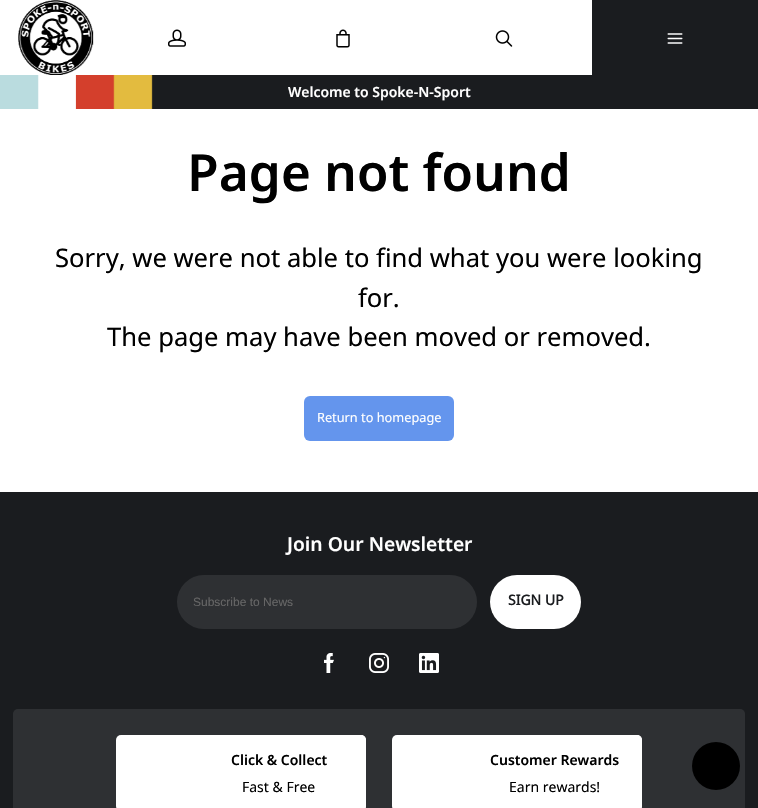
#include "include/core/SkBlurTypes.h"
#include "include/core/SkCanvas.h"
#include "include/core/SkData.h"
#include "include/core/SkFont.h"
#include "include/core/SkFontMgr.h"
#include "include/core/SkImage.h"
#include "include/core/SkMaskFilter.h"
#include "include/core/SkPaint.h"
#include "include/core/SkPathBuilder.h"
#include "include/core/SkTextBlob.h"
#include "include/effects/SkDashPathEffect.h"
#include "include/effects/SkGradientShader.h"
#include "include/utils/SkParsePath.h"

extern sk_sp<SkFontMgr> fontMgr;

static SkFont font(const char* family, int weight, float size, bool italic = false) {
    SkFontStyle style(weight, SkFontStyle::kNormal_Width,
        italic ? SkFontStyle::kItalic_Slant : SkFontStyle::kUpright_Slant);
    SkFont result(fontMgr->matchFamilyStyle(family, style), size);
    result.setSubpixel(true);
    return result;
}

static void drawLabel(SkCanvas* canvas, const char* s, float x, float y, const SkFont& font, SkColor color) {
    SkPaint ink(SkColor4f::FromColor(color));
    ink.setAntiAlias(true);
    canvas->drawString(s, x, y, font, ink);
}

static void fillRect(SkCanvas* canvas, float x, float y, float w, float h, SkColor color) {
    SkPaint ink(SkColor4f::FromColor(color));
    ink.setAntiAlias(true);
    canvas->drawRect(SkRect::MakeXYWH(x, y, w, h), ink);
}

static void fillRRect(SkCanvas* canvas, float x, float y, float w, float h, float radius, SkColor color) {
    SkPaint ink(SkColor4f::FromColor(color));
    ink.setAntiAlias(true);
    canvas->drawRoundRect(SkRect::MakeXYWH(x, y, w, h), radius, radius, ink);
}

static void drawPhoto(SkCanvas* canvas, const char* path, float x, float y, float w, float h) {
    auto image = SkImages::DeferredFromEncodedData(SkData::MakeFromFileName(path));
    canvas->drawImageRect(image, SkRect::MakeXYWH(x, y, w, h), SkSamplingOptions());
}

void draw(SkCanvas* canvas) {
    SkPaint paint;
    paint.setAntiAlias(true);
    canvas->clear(0xFFFFFFFF);
    drawPhoto(canvas, "assets/img1.png", 18, 0, 76, 75);
    drawPhoto(canvas, "assets/img2.png", 168, 29, 18, 18);
    drawPhoto(canvas, "assets/img3.png", 336, 29, 14, 19);
    drawPhoto(canvas, "assets/img4.png", 495, 30, 18, 17);
    fillRect(canvas, 592, 0, 166, 75, 0xFF1A1C1F);
    drawPhoto(canvas, "assets/img5.png", 667, 33, 16, 11);
    fillRect(canvas, 151, 75, 607, 34, 0xFF1A1C1F);
    drawPhoto(canvas, "assets/img6.png", 0, 75, 153, 34);
    SkFont font1 = font("Noto Sans", 600, 14);
    drawLabel(canvas, "Welcome to Spoke-N-Sport", 288, 97, font1, 0xFFFFFFFF);
    SkFont font2 = font("Noto Sans", 600, 51.25f);
    drawLabel(canvas, "Page not found", 187, 191, font2, 0xFF000000);
    SkFont font3 = font("Noto Sans", 400, 25.6f);
    drawLabel(canvas, "Sorry, we were not able to find what you were looking", 55, 267, font3, 0xFF000000);
    drawLabel(canvas, "for.", 358, 307, font3, 0xFF000000);
    drawLabel(canvas, "The page may have been moved or removed.", 107, 346, font3, 0xFF000000);
    fillRRect(canvas, 304, 396, 150, 45, 6, 0xFF6495ED);
    SkFont font4 = font("Noto Sans", 400, 12.75f);
    drawLabel(canvas, "Return to homepage", 317, 422, font4, 0xFFFFFFFF);
    fillRect(canvas, 0, 492, 758, 316, 0xFF1A1C1F);
    SkFont font5 = font("Noto Sans", 600, 19.25f);
    drawLabel(canvas, "Join Our Newsletter", 287, 551, font5, 0xFFFFFFFF);
    fillRRect(canvas, 177, 575, 300, 54, 27, 0xFF2E3033);
    SkFont font6 = font("Liberation Sans", 400, 12);
    drawLabel(canvas, "Subscribe to News", 193, 606, font6, 0xFF666666);
    fillRRect(canvas, 490, 575, 91, 54, 27, 0xFFFFFFFF);
    SkFont font7 = font("Noto Sans", 700, 14);
    drawLabel(canvas, "SIGN UP", 508, 605, font7, 0xFF1A1C1F);
    drawPhoto(canvas, "assets/img7.png", 324, 653, 10, 20);
    drawPhoto(canvas, "assets/img8.png", 369, 653, 20, 20);
    drawPhoto(canvas, "assets/img9.png", 419, 653, 20, 20);
    fillRRect(canvas, 13, 709, 732, 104, 5, 0xFF2E3033);
    fillRRect(canvas, 116, 735, 250, 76, 5, 0xFFFFFFFF);
    fillRRect(canvas, 191, 735, 175, 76, 5, 0xFFFFFFFF);
    drawLabel(canvas, "Click & Collect", 231, 765, font1, 0xFF000000);
    SkFont font8 = font("Noto Sans", 400, 14);
    drawLabel(canvas, "Fast & Free", 242, 792, font8, 0xFF000000);
    fillRRect(canvas, 392, 735, 250, 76, 5, 0xFFFFFFFF);
    fillRRect(canvas, 467, 735, 175, 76, 5, 0xFFFFFFFF);
    drawLabel(canvas, "Customer Rewards", 490, 765, font1, 0xFF000000);
    drawLabel(canvas, "Earn rewards!", 509, 792, font8, 0xFF000000);
    drawPhoto(canvas, "assets/img10.png", 692, 742, 48, 48);
}
